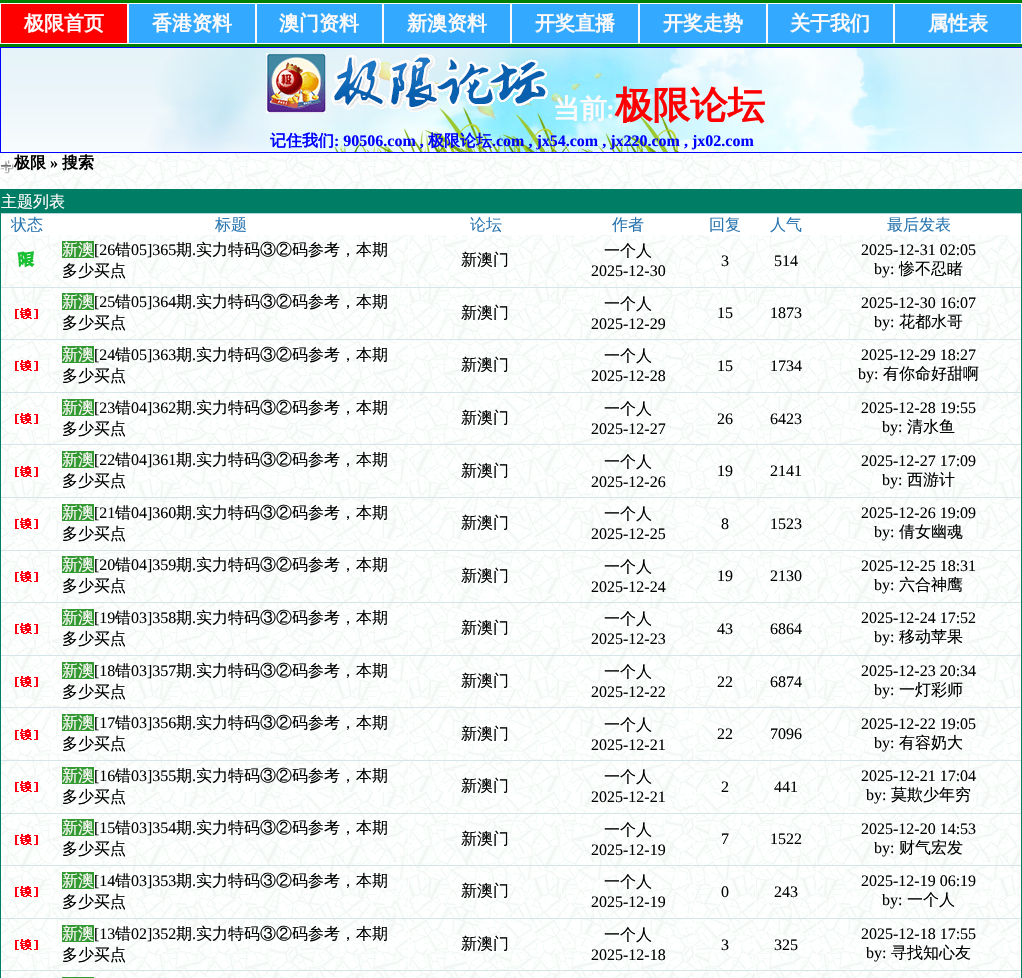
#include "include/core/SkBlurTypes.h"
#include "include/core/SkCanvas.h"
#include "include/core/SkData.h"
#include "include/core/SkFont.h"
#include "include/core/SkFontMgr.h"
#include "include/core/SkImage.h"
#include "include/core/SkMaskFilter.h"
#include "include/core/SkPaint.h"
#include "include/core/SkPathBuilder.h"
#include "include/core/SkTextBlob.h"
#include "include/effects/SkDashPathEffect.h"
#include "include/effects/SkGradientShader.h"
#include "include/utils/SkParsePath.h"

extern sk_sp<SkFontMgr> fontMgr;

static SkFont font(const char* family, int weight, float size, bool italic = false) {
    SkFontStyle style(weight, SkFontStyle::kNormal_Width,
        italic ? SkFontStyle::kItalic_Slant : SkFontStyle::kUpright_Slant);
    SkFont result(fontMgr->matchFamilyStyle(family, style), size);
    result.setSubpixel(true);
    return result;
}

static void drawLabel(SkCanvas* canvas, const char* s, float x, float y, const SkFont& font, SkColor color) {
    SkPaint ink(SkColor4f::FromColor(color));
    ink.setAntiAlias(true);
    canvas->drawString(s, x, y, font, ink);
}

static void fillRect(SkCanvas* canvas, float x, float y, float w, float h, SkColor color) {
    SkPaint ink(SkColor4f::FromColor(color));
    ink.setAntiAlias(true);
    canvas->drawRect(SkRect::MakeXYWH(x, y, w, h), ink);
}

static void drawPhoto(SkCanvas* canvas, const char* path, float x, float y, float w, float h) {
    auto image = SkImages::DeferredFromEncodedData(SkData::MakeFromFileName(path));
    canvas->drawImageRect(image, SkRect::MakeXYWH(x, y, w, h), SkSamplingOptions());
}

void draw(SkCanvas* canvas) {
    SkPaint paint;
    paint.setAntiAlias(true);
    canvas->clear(0xFFFFFFFF);
    drawPhoto(canvas, "assets/img1.png", 0, 153, 1022, 825);
    fillRect(canvas, 0, 0, 1022, 47, 0xFF008000);
    fillRect(canvas, 129, 4, 892, 39, 0xFF33AAFF);
    paint.setStroke(true);
    paint.setStrokeWidth(1);
    paint.setColor(0xFFFFFAFA);
    canvas->drawRect(SkRect::MakeXYWH(0.5f, 3.5f, 127, 40), paint);
    fillRect(canvas, 1, 4, 126, 39, 0xFFFF0000);
    SkFont font1 = font("WenQuanYi Zen Hei", 700, 20);
    drawLabel(canvas, "极限首页", 24, 30, font1, 0xFFFFFAFA);
    canvas->drawRect(SkRect::MakeXYWH(128.5f, 3.5f, 127, 40), paint);
    drawLabel(canvas, "香港资料", 152, 30, font1, 0xFFFFFAFA);
    canvas->drawRect(SkRect::MakeXYWH(256.5f, 3.5f, 126, 40), paint);
    drawLabel(canvas, "澳门资料", 279, 30, font1, 0xFFFFFAFA);
    canvas->drawRect(SkRect::MakeXYWH(383.5f, 3.5f, 127, 40), paint);
    drawLabel(canvas, "新澳资料", 407, 30, font1, 0xFFFFFAFA);
    canvas->drawRect(SkRect::MakeXYWH(511.5f, 3.5f, 127, 40), paint);
    drawLabel(canvas, "开奖直播", 535, 30, font1, 0xFFFFFAFA);
    canvas->drawRect(SkRect::MakeXYWH(639.5f, 3.5f, 127, 40), paint);
    drawLabel(canvas, "开奖走势", 663, 30, font1, 0xFFFFFAFA);
    canvas->drawRect(SkRect::MakeXYWH(767.5f, 3.5f, 126, 40), paint);
    drawLabel(canvas, "关于我们", 790, 30, font1, 0xFFFFFAFA);
    canvas->drawRect(SkRect::MakeXYWH(894.5f, 3.5f, 127, 40), paint);
    drawLabel(canvas, "属性表", 928, 30, font1, 0xFFFFFAFA);
    drawPhoto(canvas, "assets/img2.png", 1, 48, 1021, 104);
    paint.setColor(0xFF0000FF);
    canvas->drawRect(SkRect::MakeXYWH(0.5f, 47.5f, 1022, 105), paint);
    drawPhoto(canvas, "assets/img3.png", 266, 53, 282, 60);
    SkFont font2 = font("WenQuanYi Zen Hei", 700, 27);
    drawLabel(canvas, "当前", 553, 118, font2, 0xFFFFFAFA);
    SkFont font3 = font("Liberation Serif", 700, 27);
    drawLabel(canvas, ":", 606, 118, font3, 0xFFFFFAFA);
    SkFont font4 = font("WenQuanYi Zen Hei", 700, 37.5f);
    drawLabel(canvas, "极限论坛", 615, 118, font4, 0xFFFF0000);
    SkFont font5 = font("WenQuanYi Zen Hei", 700, 16);
    drawLabel(canvas, "记住我们", 270, 146, font5, 0xFF0000FF);
    SkFont font6 = font("Liberation Serif", 700, 16);
    drawLabel(canvas, ": 90506.com ,", 334, 146, font6, 0xFF0000FF);
    drawLabel(canvas, "极限论坛", 428, 146, font5, 0xFF0000FF);
    drawLabel(canvas, ".com , jx54.com , jx220.com , jx02.com", 492, 146, font6, 0xFF0000FF);
    drawPhoto(canvas, "assets/img4.png", 0, 160, 14, 14);
    drawLabel(canvas, "极限", 14, 168, font5, 0xFF000000);
    drawLabel(canvas, "»", 50, 168, font6, 0xFF000000);
    drawLabel(canvas, "搜索", 62, 168, font5, 0xFF000000);
    paint.setColor(0xFF007D65);
    canvas->drawRect(SkRect::MakeXYWH(0.5f, 189.5f, 1021, 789), paint);
    fillRect(canvas, 1, 190, 1020, 23, 0xFF007D65);
    fillRect(canvas, 1, 213, 1020, 1, 0xFFAED6DB);
    SkFont font7 = font("WenQuanYi Zen Hei", 500, 16);
    drawLabel(canvas, "主题列表", 1, 207, font7, 0xFFFFFAFA);
    fillRect(canvas, 1, 214, 1020, 21, 0xFFFFFFFF);
    drawLabel(canvas, "状态", 11, 230, font7, 0xFF2B76B0);
    drawLabel(canvas, "标题", 215, 230, font7, 0xFF2B76B0);
    drawLabel(canvas, "论坛", 470, 230, font7, 0xFF2B76B0);
    drawLabel(canvas, "作者", 612, 230, font7, 0xFF2B76B0);
    drawLabel(canvas, "回复", 709, 230, font7, 0xFF2B76B0);
    drawLabel(canvas, "人气", 770, 230, font7, 0xFF2B76B0);
    drawLabel(canvas, "最后发表", 887, 230, font7, 0xFF2B76B0);
    fillRect(canvas, 51, 235, 1, 631, 0xFFFFFFFF);
    fillRect(canvas, 1, 287, 51, 1, 0xFFD5E5E8);
    drawPhoto(canvas, "assets/img5.png", 17, 250, 18, 21);
    fillRect(canvas, 408, 235, 1, 743, 0xFFFFFFFF);
    fillRect(canvas, 52, 287, 357, 1, 0xFFD5E5E8);
    fillRect(canvas, 62, 241, 32, 17, 0xFF339933);
    drawLabel(canvas, "新澳", 62, 255, font7, 0xFFFFFAFA);
    SkFont font8 = font("Liberation Serif", 400, 16);
    drawLabel(canvas, "[26", 94, 255, font8, 0xFF000000);
    drawLabel(canvas, "错", 115, 255, font7, 0xFF000000);
    drawLabel(canvas, "05]365", 131, 255, font8, 0xFF000000);
    drawLabel(canvas, "期", 176, 255, font7, 0xFF000000);
    drawLabel(canvas, ".", 192, 255, font8, 0xFF000000);
    drawLabel(canvas, "实力特码③②码参考，本期", 196, 255, font7, 0xFF000000);
    drawLabel(canvas, "多少买点", 62, 276, font7, 0xFF000000);
    fillRect(canvas, 561, 235, 1, 743, 0xFFFFFFFF);
    fillRect(canvas, 409, 287, 153, 1, 0xFFD5E5E8);
    drawLabel(canvas, "新澳门", 461, 265, font7, 0xFF000000);
    fillRect(canvas, 694, 235, 1, 743, 0xFFFFFFFF);
    fillRect(canvas, 562, 287, 133, 1, 0xFFD5E5E8);
    drawLabel(canvas, "一个人", 604, 256, font7, 0xFF000000);
    drawLabel(canvas, "2025-12-30", 591, 276, font8, 0xFF000000);
    fillRect(canvas, 755, 235, 1, 743, 0xFFFFFFFF);
    fillRect(canvas, 695, 287, 61, 1, 0xFFD5E5E8);
    drawLabel(canvas, "3", 721, 266, font8, 0xFF000000);
    fillRect(canvas, 816, 235, 1, 743, 0xFFFFFFFF);
    fillRect(canvas, 756, 287, 61, 1, 0xFFD5E5E8);
    drawLabel(canvas, "514", 774, 266, font8, 0xFF000000);
    fillRect(canvas, 1020, 235, 1, 743, 0xFFFFFFFF);
    fillRect(canvas, 817, 287, 204, 1, 0xFFD5E5E8);
    drawLabel(canvas, "2025-12-31 02:05", 861, 255, font8, 0xFF000000);
    drawLabel(canvas, "by:", 874, 274, font8, 0xFF000000);
    drawLabel(canvas, "惨不忍睹", 899, 274, font7, 0xFF000000);
    fillRect(canvas, 62, 293, 32, 17, 0xFF339933);
    drawLabel(canvas, "新澳", 62, 307, font7, 0xFFFFFAFA);
    drawLabel(canvas, "[25", 94, 307, font8, 0xFF000000);
    drawLabel(canvas, "错", 115, 307, font7, 0xFF000000);
    drawLabel(canvas, "05]364", 131, 307, font8, 0xFF000000);
    drawLabel(canvas, "期", 176, 307, font7, 0xFF000000);
    drawLabel(canvas, ".", 192, 307, font8, 0xFF000000);
    drawLabel(canvas, "实力特码③②码参考，本期", 196, 307, font7, 0xFF000000);
    drawLabel(canvas, "多少买点", 62, 328, font7, 0xFF000000);
    drawLabel(canvas, "新澳门", 461, 318, font7, 0xFF000000);
    drawLabel(canvas, "一个人", 604, 309, font7, 0xFF000000);
    drawLabel(canvas, "2025-12-29", 591, 329, font8, 0xFF000000);
    drawLabel(canvas, "15", 717, 318, font8, 0xFF000000);
    drawLabel(canvas, "1873", 770, 318, font8, 0xFF000000);
    drawLabel(canvas, "2025-12-30 16:07", 861, 308, font8, 0xFF000000);
    drawLabel(canvas, "by:", 874, 327, font8, 0xFF000000);
    drawLabel(canvas, "花都水哥", 899, 327, font7, 0xFF000000);
    fillRect(canvas, 1, 339, 1020, 1, 0xFFD5E5E8);
    drawPhoto(canvas, "assets/img6.png", 15, 308, 23, 11);
    fillRect(canvas, 62, 346, 32, 17, 0xFF339933);
    drawLabel(canvas, "新澳", 62, 360, font7, 0xFFFFFAFA);
    drawLabel(canvas, "[24", 94, 360, font8, 0xFF000000);
    drawLabel(canvas, "错", 115, 360, font7, 0xFF000000);
    drawLabel(canvas, "05]363", 131, 360, font8, 0xFF000000);
    drawLabel(canvas, "期", 176, 360, font7, 0xFF000000);
    drawLabel(canvas, ".", 192, 360, font8, 0xFF000000);
    drawLabel(canvas, "实力特码③②码参考，本期", 196, 360, font7, 0xFF000000);
    drawLabel(canvas, "多少买点", 62, 381, font7, 0xFF000000);
    drawLabel(canvas, "新澳门", 461, 370, font7, 0xFF000000);
    drawLabel(canvas, "一个人", 604, 361, font7, 0xFF000000);
    drawLabel(canvas, "2025-12-28", 591, 381, font8, 0xFF000000);
    drawLabel(canvas, "2025-12-29 18:27", 861, 360, font8, 0xFF000000);
    drawLabel(canvas, "by:", 858, 379, font8, 0xFF000000);
    drawLabel(canvas, "有你命好甜啊", 883, 379, font7, 0xFF000000);
    fillRect(canvas, 1, 392, 1020, 1, 0xFFD5E5E8);
    drawPhoto(canvas, "assets/img6.png", 15, 360, 23, 11);
    drawLabel(canvas, "15", 717, 371, font8, 0xFF000000);
    drawLabel(canvas, "1734", 770, 371, font8, 0xFF000000);
    fillRect(canvas, 62, 399, 32, 17, 0xFF339933);
    drawLabel(canvas, "新澳", 62, 413, font7, 0xFFFFFAFA);
    drawLabel(canvas, "[23", 94, 413, font8, 0xFF000000);
    drawLabel(canvas, "错", 115, 413, font7, 0xFF000000);
    drawLabel(canvas, "04]362", 131, 413, font8, 0xFF000000);
    drawLabel(canvas, "期", 176, 413, font7, 0xFF000000);
    drawLabel(canvas, ".", 192, 413, font8, 0xFF000000);
    drawLabel(canvas, "实力特码③②码参考，本期", 196, 413, font7, 0xFF000000);
    drawLabel(canvas, "多少买点", 62, 434, font7, 0xFF000000);
    drawLabel(canvas, "新澳门", 461, 423, font7, 0xFF000000);
    drawLabel(canvas, "一个人", 604, 414, font7, 0xFF000000);
    drawLabel(canvas, "2025-12-27", 591, 434, font8, 0xFF000000);
    drawLabel(canvas, "2025-12-28 19:55", 861, 413, font8, 0xFF000000);
    drawLabel(canvas, "by:", 882, 432, font8, 0xFF000000);
    drawLabel(canvas, "清水鱼", 907, 432, font7, 0xFF000000);
    fillRect(canvas, 1, 444, 1020, 1, 0xFFD5E5E8);
    drawPhoto(canvas, "assets/img6.png", 15, 413, 23, 11);
    drawLabel(canvas, "26", 717, 424, font8, 0xFF000000);
    drawLabel(canvas, "6423", 770, 424, font8, 0xFF000000);
    fillRect(canvas, 62, 451, 32, 17, 0xFF339933);
    drawLabel(canvas, "新澳", 62, 465, font7, 0xFFFFFAFA);
    drawLabel(canvas, "[22", 94, 465, font8, 0xFF000000);
    drawLabel(canvas, "错", 115, 465, font7, 0xFF000000);
    drawLabel(canvas, "04]361", 131, 465, font8, 0xFF000000);
    drawLabel(canvas, "期", 176, 465, font7, 0xFF000000);
    drawLabel(canvas, ".", 192, 465, font8, 0xFF000000);
    drawLabel(canvas, "实力特码③②码参考，本期", 196, 465, font7, 0xFF000000);
    drawLabel(canvas, "多少买点", 62, 486, font7, 0xFF000000);
    drawLabel(canvas, "新澳门", 461, 476, font7, 0xFF000000);
    drawLabel(canvas, "一个人", 604, 467, font7, 0xFF000000);
    drawLabel(canvas, "2025-12-26", 591, 487, font8, 0xFF000000);
    drawLabel(canvas, "19", 717, 476, font8, 0xFF000000);
    drawLabel(canvas, "2141", 770, 476, font8, 0xFF000000);
    drawLabel(canvas, "2025-12-27 17:09", 861, 466, font8, 0xFF000000);
    drawLabel(canvas, "by:", 882, 485, font8, 0xFF000000);
    drawLabel(canvas, "西游计", 907, 485, font7, 0xFF000000);
    fillRect(canvas, 1, 497, 1020, 1, 0xFFD5E5E8);
    drawPhoto(canvas, "assets/img6.png", 15, 466, 23, 11);
    fillRect(canvas, 62, 504, 32, 17, 0xFF339933);
    drawLabel(canvas, "新澳", 62, 518, font7, 0xFFFFFAFA);
    drawLabel(canvas, "[21", 94, 518, font8, 0xFF000000);
    drawLabel(canvas, "错", 115, 518, font7, 0xFF000000);
    drawLabel(canvas, "04]360", 131, 518, font8, 0xFF000000);
    drawLabel(canvas, "期", 176, 518, font7, 0xFF000000);
    drawLabel(canvas, ".", 192, 518, font8, 0xFF000000);
    drawLabel(canvas, "实力特码③②码参考，本期", 196, 518, font7, 0xFF000000);
    drawLabel(canvas, "多少买点", 62, 539, font7, 0xFF000000);
    drawLabel(canvas, "新澳门", 461, 528, font7, 0xFF000000);
    drawLabel(canvas, "一个人", 604, 519, font7, 0xFF000000);
    drawLabel(canvas, "2025-12-25", 591, 539, font8, 0xFF000000);
    drawLabel(canvas, "2025-12-26 19:09", 861, 518, font8, 0xFF000000);
    drawLabel(canvas, "by:", 874, 537, font8, 0xFF000000);
    drawLabel(canvas, "倩女幽魂", 899, 537, font7, 0xFF000000);
    fillRect(canvas, 1, 550, 1020, 1, 0xFFD5E5E8);
    drawPhoto(canvas, "assets/img6.png", 15, 518, 23, 11);
    drawLabel(canvas, "8", 721, 529, font8, 0xFF000000);
    drawLabel(canvas, "1523", 770, 529, font8, 0xFF000000);
    fillRect(canvas, 62, 556, 32, 17, 0xFF339933);
    drawLabel(canvas, "新澳", 62, 570, font7, 0xFFFFFAFA);
    drawLabel(canvas, "[20", 94, 570, font8, 0xFF000000);
    drawLabel(canvas, "错", 115, 570, font7, 0xFF000000);
    drawLabel(canvas, "04]359", 131, 570, font8, 0xFF000000);
    drawLabel(canvas, "期", 176, 570, font7, 0xFF000000);
    drawLabel(canvas, ".", 192, 570, font8, 0xFF000000);
    drawLabel(canvas, "实力特码③②码参考，本期", 196, 570, font7, 0xFF000000);
    drawLabel(canvas, "多少买点", 62, 591, font7, 0xFF000000);
    drawLabel(canvas, "新澳门", 461, 581, font7, 0xFF000000);
    drawLabel(canvas, "一个人", 604, 572, font7, 0xFF000000);
    drawLabel(canvas, "2025-12-24", 591, 592, font8, 0xFF000000);
    drawLabel(canvas, "19", 717, 581, font8, 0xFF000000);
    drawLabel(canvas, "2130", 770, 581, font8, 0xFF000000);
    drawLabel(canvas, "2025-12-25 18:31", 861, 571, font8, 0xFF000000);
    drawLabel(canvas, "by:", 874, 590, font8, 0xFF000000);
    drawLabel(canvas, "六合神鹰", 899, 590, font7, 0xFF000000);
    fillRect(canvas, 1, 602, 1020, 1, 0xFFD5E5E8);
    drawPhoto(canvas, "assets/img6.png", 15, 571, 23, 11);
    fillRect(canvas, 62, 609, 32, 17, 0xFF339933);
    drawLabel(canvas, "新澳", 62, 623, font7, 0xFFFFFAFA);
    drawLabel(canvas, "[19", 94, 623, font8, 0xFF000000);
    drawLabel(canvas, "错", 115, 623, font7, 0xFF000000);
    drawLabel(canvas, "03]358", 131, 623, font8, 0xFF000000);
    drawLabel(canvas, "期", 176, 623, font7, 0xFF000000);
    drawLabel(canvas, ".", 192, 623, font8, 0xFF000000);
    drawLabel(canvas, "实力特码③②码参考，本期", 196, 623, font7, 0xFF000000);
    drawLabel(canvas, "多少买点", 62, 644, font7, 0xFF000000);
    drawLabel(canvas, "新澳门", 461, 633, font7, 0xFF000000);
    drawLabel(canvas, "一个人", 604, 624, font7, 0xFF000000);
    drawLabel(canvas, "2025-12-23", 591, 644, font8, 0xFF000000);
    drawLabel(canvas, "2025-12-24 17:52", 861, 623, font8, 0xFF000000);
    drawLabel(canvas, "by:", 874, 642, font8, 0xFF000000);
    drawLabel(canvas, "移动苹果", 899, 642, font7, 0xFF000000);
    fillRect(canvas, 1, 655, 1020, 1, 0xFFD5E5E8);
    drawPhoto(canvas, "assets/img6.png", 15, 623, 23, 11);
    drawLabel(canvas, "43", 717, 634, font8, 0xFF000000);
    drawLabel(canvas, "6864", 770, 634, font8, 0xFF000000);
    fillRect(canvas, 62, 662, 32, 17, 0xFF339933);
    drawLabel(canvas, "新澳", 62, 676, font7, 0xFFFFFAFA);
    drawLabel(canvas, "[18", 94, 676, font8, 0xFF000000);
    drawLabel(canvas, "错", 115, 676, font7, 0xFF000000);
    drawLabel(canvas, "03]357", 131, 676, font8, 0xFF000000);
    drawLabel(canvas, "期", 176, 676, font7, 0xFF000000);
    drawLabel(canvas, ".", 192, 676, font8, 0xFF000000);
    drawLabel(canvas, "实力特码③②码参考，本期", 196, 676, font7, 0xFF000000);
    drawLabel(canvas, "多少买点", 62, 697, font7, 0xFF000000);
    drawLabel(canvas, "新澳门", 461, 686, font7, 0xFF000000);
    drawLabel(canvas, "一个人", 604, 677, font7, 0xFF000000);
    drawLabel(canvas, "2025-12-22", 591, 697, font8, 0xFF000000);
    drawLabel(canvas, "2025-12-23 20:34", 861, 676, font8, 0xFF000000);
    drawLabel(canvas, "by:", 874, 695, font8, 0xFF000000);
    drawLabel(canvas, "一灯彩师", 899, 695, font7, 0xFF000000);
    fillRect(canvas, 1, 707, 1020, 1, 0xFFD5E5E8);
    drawPhoto(canvas, "assets/img6.png", 15, 676, 23, 11);
    drawLabel(canvas, "22", 717, 687, font8, 0xFF000000);
    drawLabel(canvas, "6874", 770, 687, font8, 0xFF000000);
    fillRect(canvas, 62, 714, 32, 17, 0xFF339933);
    drawLabel(canvas, "新澳", 62, 728, font7, 0xFFFFFAFA);
    drawLabel(canvas, "[17", 94, 728, font8, 0xFF000000);
    drawLabel(canvas, "错", 115, 728, font7, 0xFF000000);
    drawLabel(canvas, "03]356", 131, 728, font8, 0xFF000000);
    drawLabel(canvas, "期", 176, 728, font7, 0xFF000000);
    drawLabel(canvas, ".", 192, 728, font8, 0xFF000000);
    drawLabel(canvas, "实力特码③②码参考，本期", 196, 728, font7, 0xFF000000);
    drawLabel(canvas, "多少买点", 62, 749, font7, 0xFF000000);
    drawLabel(canvas, "新澳门", 461, 739, font7, 0xFF000000);
    drawLabel(canvas, "一个人", 604, 730, font7, 0xFF000000);
    drawLabel(canvas, "2025-12-21", 591, 750, font8, 0xFF000000);
    drawLabel(canvas, "22", 717, 739, font8, 0xFF000000);
    drawLabel(canvas, "7096", 770, 739, font8, 0xFF000000);
    drawLabel(canvas, "2025-12-22 19:05", 861, 729, font8, 0xFF000000);
    drawLabel(canvas, "by:", 874, 748, font8, 0xFF000000);
    drawLabel(canvas, "有容奶大", 899, 748, font7, 0xFF000000);
    fillRect(canvas, 1, 760, 1020, 1, 0xFFD5E5E8);
    drawPhoto(canvas, "assets/img6.png", 15, 729, 23, 11);
    fillRect(canvas, 62, 767, 32, 17, 0xFF339933);
    drawLabel(canvas, "新澳", 62, 781, font7, 0xFFFFFAFA);
    drawLabel(canvas, "[16", 94, 781, font8, 0xFF000000);
    drawLabel(canvas, "错", 115, 781, font7, 0xFF000000);
    drawLabel(canvas, "03]355", 131, 781, font8, 0xFF000000);
    drawLabel(canvas, "期", 176, 781, font7, 0xFF000000);
    drawLabel(canvas, ".", 192, 781, font8, 0xFF000000);
    drawLabel(canvas, "实力特码③②码参考，本期", 196, 781, font7, 0xFF000000);
    drawLabel(canvas, "多少买点", 62, 802, font7, 0xFF000000);
    drawLabel(canvas, "新澳门", 461, 791, font7, 0xFF000000);
    drawLabel(canvas, "一个人", 604, 782, font7, 0xFF000000);
    drawLabel(canvas, "2025-12-21", 591, 802, font8, 0xFF000000);
    drawLabel(canvas, "2025-12-21 17:04", 861, 781, font8, 0xFF000000);
    drawLabel(canvas, "by:", 866, 800, font8, 0xFF000000);
    drawLabel(canvas, "莫欺少年穷", 891, 800, font7, 0xFF000000);
    fillRect(canvas, 1, 813, 1020, 1, 0xFFD5E5E8);
    drawPhoto(canvas, "assets/img6.png", 15, 781, 23, 11);
    drawLabel(canvas, "2", 721, 792, font8, 0xFF000000);
    drawLabel(canvas, "441", 774, 792, font8, 0xFF000000);
    fillRect(canvas, 62, 819, 32, 17, 0xFF339933);
    drawLabel(canvas, "新澳", 62, 833, font7, 0xFFFFFAFA);
    drawLabel(canvas, "[15", 94, 833, font8, 0xFF000000);
    drawLabel(canvas, "错", 115, 833, font7, 0xFF000000);
    drawLabel(canvas, "03]354", 131, 833, font8, 0xFF000000);
    drawLabel(canvas, "期", 176, 833, font7, 0xFF000000);
    drawLabel(canvas, ".", 192, 833, font8, 0xFF000000);
    drawLabel(canvas, "实力特码③②码参考，本期", 196, 833, font7, 0xFF000000);
    drawLabel(canvas, "多少买点", 62, 854, font7, 0xFF000000);
    drawLabel(canvas, "新澳门", 461, 844, font7, 0xFF000000);
    drawLabel(canvas, "一个人", 604, 835, font7, 0xFF000000);
    drawLabel(canvas, "2025-12-19", 591, 855, font8, 0xFF000000);
    drawLabel(canvas, "7", 721, 844, font8, 0xFF000000);
    drawLabel(canvas, "1522", 770, 844, font8, 0xFF000000);
    drawLabel(canvas, "2025-12-20 14:53", 861, 834, font8, 0xFF000000);
    drawLabel(canvas, "by:", 874, 853, font8, 0xFF000000);
    drawLabel(canvas, "财气宏发", 899, 853, font7, 0xFF000000);
    fillRect(canvas, 1, 865, 1020, 1, 0xFFD5E5E8);
    drawPhoto(canvas, "assets/img6.png", 15, 834, 23, 11);
    fillRect(canvas, 62, 872, 32, 17, 0xFF339933);
    drawLabel(canvas, "新澳", 62, 886, font7, 0xFFFFFAFA);
    drawLabel(canvas, "[14", 94, 886, font8, 0xFF000000);
    drawLabel(canvas, "错", 115, 886, font7, 0xFF000000);
    drawLabel(canvas, "03]353", 131, 886, font8, 0xFF000000);
    drawLabel(canvas, "期", 176, 886, font7, 0xFF000000);
    drawLabel(canvas, ".", 192, 886, font8, 0xFF000000);
    drawLabel(canvas, "实力特码③②码参考，本期", 196, 886, font7, 0xFF000000);
    drawLabel(canvas, "多少买点", 62, 907, font7, 0xFF000000);
    drawLabel(canvas, "一个人", 604, 887, font7, 0xFF000000);
    drawLabel(canvas, "2025-12-19", 591, 907, font8, 0xFF000000);
    fillRect(canvas, 51, 875, 1, 103, 0xFFFFFFFF);
    fillRect(canvas, 1, 918, 1020, 1, 0xFFD5E5E8);
    drawPhoto(canvas, "assets/img6.png", 15, 886, 23, 11);
    drawLabel(canvas, "新澳门", 461, 896, font7, 0xFF000000);
    drawLabel(canvas, "0", 721, 897, font8, 0xFF000000);
    drawLabel(canvas, "243", 774, 897, font8, 0xFF000000);
    drawLabel(canvas, "2025-12-19 06:19", 861, 886, font8, 0xFF000000);
    drawLabel(canvas, "by:", 882, 905, font8, 0xFF000000);
    drawLabel(canvas, "一个人", 907, 905, font7, 0xFF000000);
    fillRect(canvas, 62, 925, 32, 17, 0xFF339933);
    drawLabel(canvas, "新澳", 62, 939, font7, 0xFFFFFAFA);
    drawLabel(canvas, "[13", 94, 939, font8, 0xFF000000);
    drawLabel(canvas, "错", 115, 939, font7, 0xFF000000);
    drawLabel(canvas, "02]352", 131, 939, font8, 0xFF000000);
    drawLabel(canvas, "期", 176, 939, font7, 0xFF000000);
    drawLabel(canvas, ".", 192, 939, font8, 0xFF000000);
    drawLabel(canvas, "实力特码③②码参考，本期", 196, 939, font7, 0xFF000000);
    drawLabel(canvas, "多少买点", 62, 960, font7, 0xFF000000);
    drawLabel(canvas, "新澳门", 461, 949, font7, 0xFF000000);
    drawLabel(canvas, "一个人", 604, 940, font7, 0xFF000000);
    drawLabel(canvas, "2025-12-18", 591, 960, font8, 0xFF000000);
    drawLabel(canvas, "2025-12-18 17:55", 861, 939, font8, 0xFF000000);
    drawLabel(canvas, "by:", 866, 958, font8, 0xFF000000);
    drawLabel(canvas, "寻找知心友", 891, 958, font7, 0xFF000000);
    fillRect(canvas, 1, 970, 1020, 1, 0xFFD5E5E8);
    drawPhoto(canvas, "assets/img6.png", 15, 939, 23, 11);
    drawLabel(canvas, "3", 721, 950, font8, 0xFF000000);
    drawLabel(canvas, "325", 774, 950, font8, 0xFF000000);
    fillRect(canvas, 62, 977, 32, 1, 0xFF339933);
}
